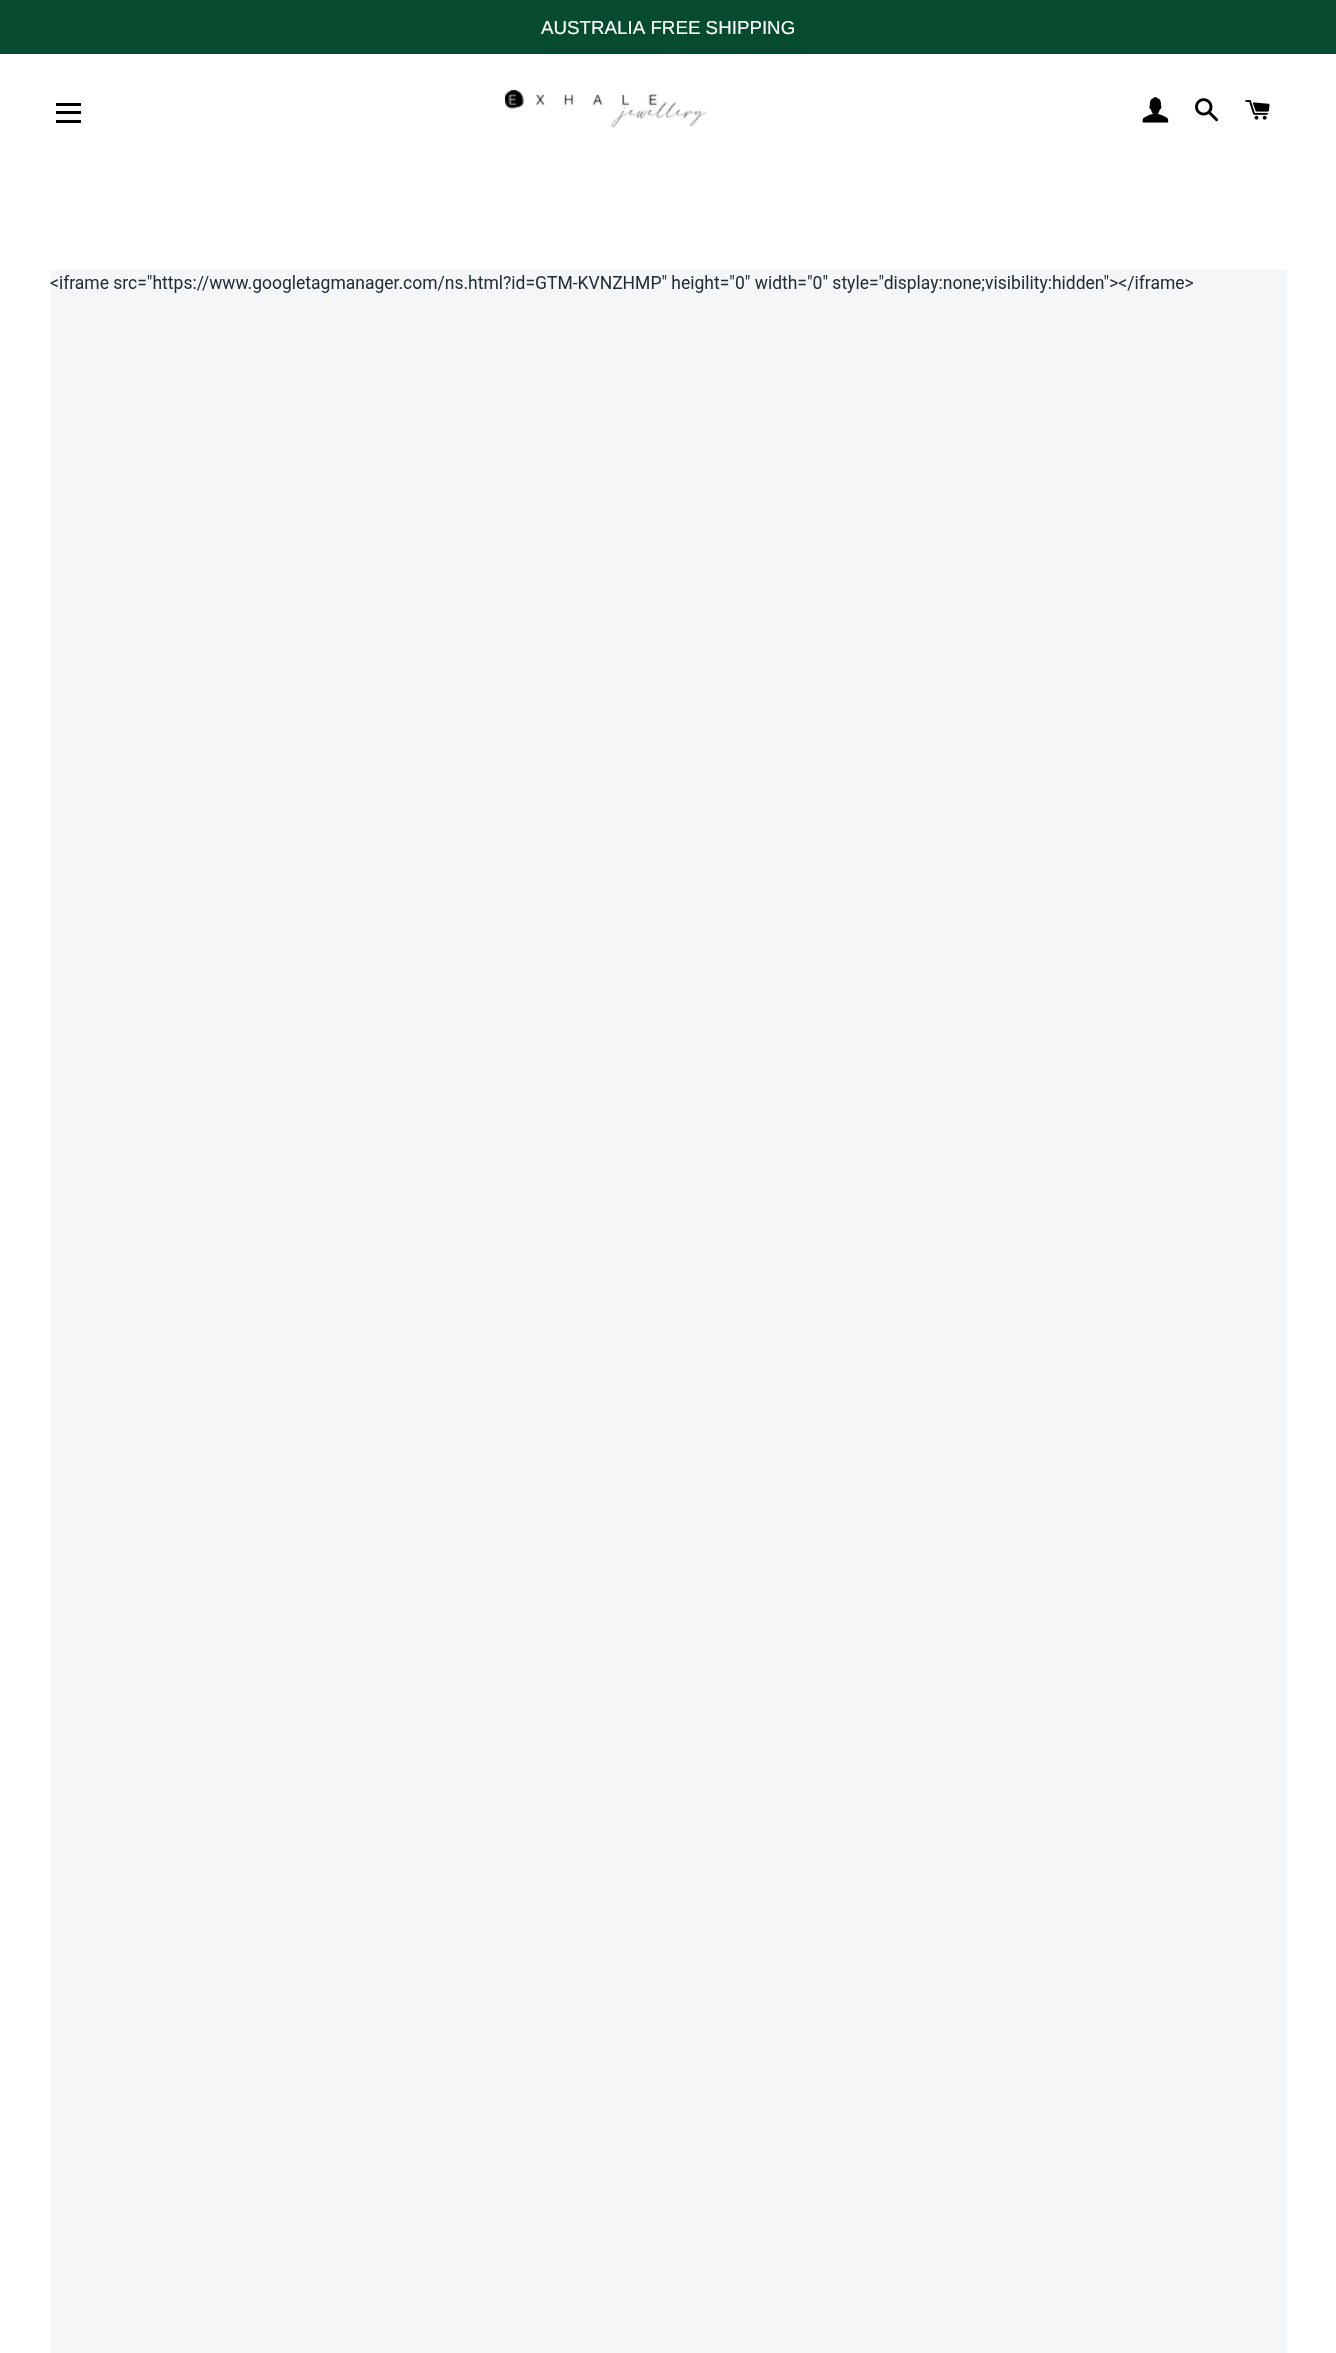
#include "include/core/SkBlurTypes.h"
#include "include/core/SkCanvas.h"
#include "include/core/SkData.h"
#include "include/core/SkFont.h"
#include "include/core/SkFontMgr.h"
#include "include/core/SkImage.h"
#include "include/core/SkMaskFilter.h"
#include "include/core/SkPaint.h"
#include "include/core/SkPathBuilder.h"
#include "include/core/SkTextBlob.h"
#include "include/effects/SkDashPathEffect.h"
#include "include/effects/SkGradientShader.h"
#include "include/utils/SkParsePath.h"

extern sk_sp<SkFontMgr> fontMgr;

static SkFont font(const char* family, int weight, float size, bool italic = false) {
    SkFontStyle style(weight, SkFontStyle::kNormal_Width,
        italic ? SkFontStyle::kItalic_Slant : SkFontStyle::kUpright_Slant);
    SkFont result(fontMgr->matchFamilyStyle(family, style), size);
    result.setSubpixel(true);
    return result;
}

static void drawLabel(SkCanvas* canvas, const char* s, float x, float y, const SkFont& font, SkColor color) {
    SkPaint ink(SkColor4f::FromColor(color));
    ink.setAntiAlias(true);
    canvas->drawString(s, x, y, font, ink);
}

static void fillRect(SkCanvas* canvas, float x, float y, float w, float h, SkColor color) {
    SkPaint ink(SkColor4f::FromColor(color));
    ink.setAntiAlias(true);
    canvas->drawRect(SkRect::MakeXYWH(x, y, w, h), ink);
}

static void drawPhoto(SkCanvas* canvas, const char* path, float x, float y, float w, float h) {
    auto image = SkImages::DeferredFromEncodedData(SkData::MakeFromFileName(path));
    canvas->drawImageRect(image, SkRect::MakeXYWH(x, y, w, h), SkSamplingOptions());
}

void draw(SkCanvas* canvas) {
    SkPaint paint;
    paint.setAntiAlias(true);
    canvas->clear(0xFFFFFFFF);
    fillRect(canvas, 0, 0, 1336, 54, 0xFF064B2F);
    SkFont font1 = font("Liberation Sans", 400, 18.75f);
    drawLabel(canvas, "AUSTRALIA FREE SHIPPING", 541, 34, font1, 0xFFFFFFFF);
    fillRect(canvas, 56, 103, 25, 3, 0xFF000000);
    fillRect(canvas, 56, 111, 25, 3, 0xFF000000);
    fillRect(canvas, 56, 120, 25, 3, 0xFF000000);
    drawPhoto(canvas, "assets/img1.png", 505, 90, 203, 38);
    drawPhoto(canvas, "assets/img2.png", 1142, 97, 27, 26);
    drawPhoto(canvas, "assets/img3.png", 1195, 98, 24, 24);
    drawPhoto(canvas, "assets/img4.png", 1245, 100, 25, 20);
    drawPhoto(canvas, "assets/img5.png", 50, 270, 1237, 2083);
}
